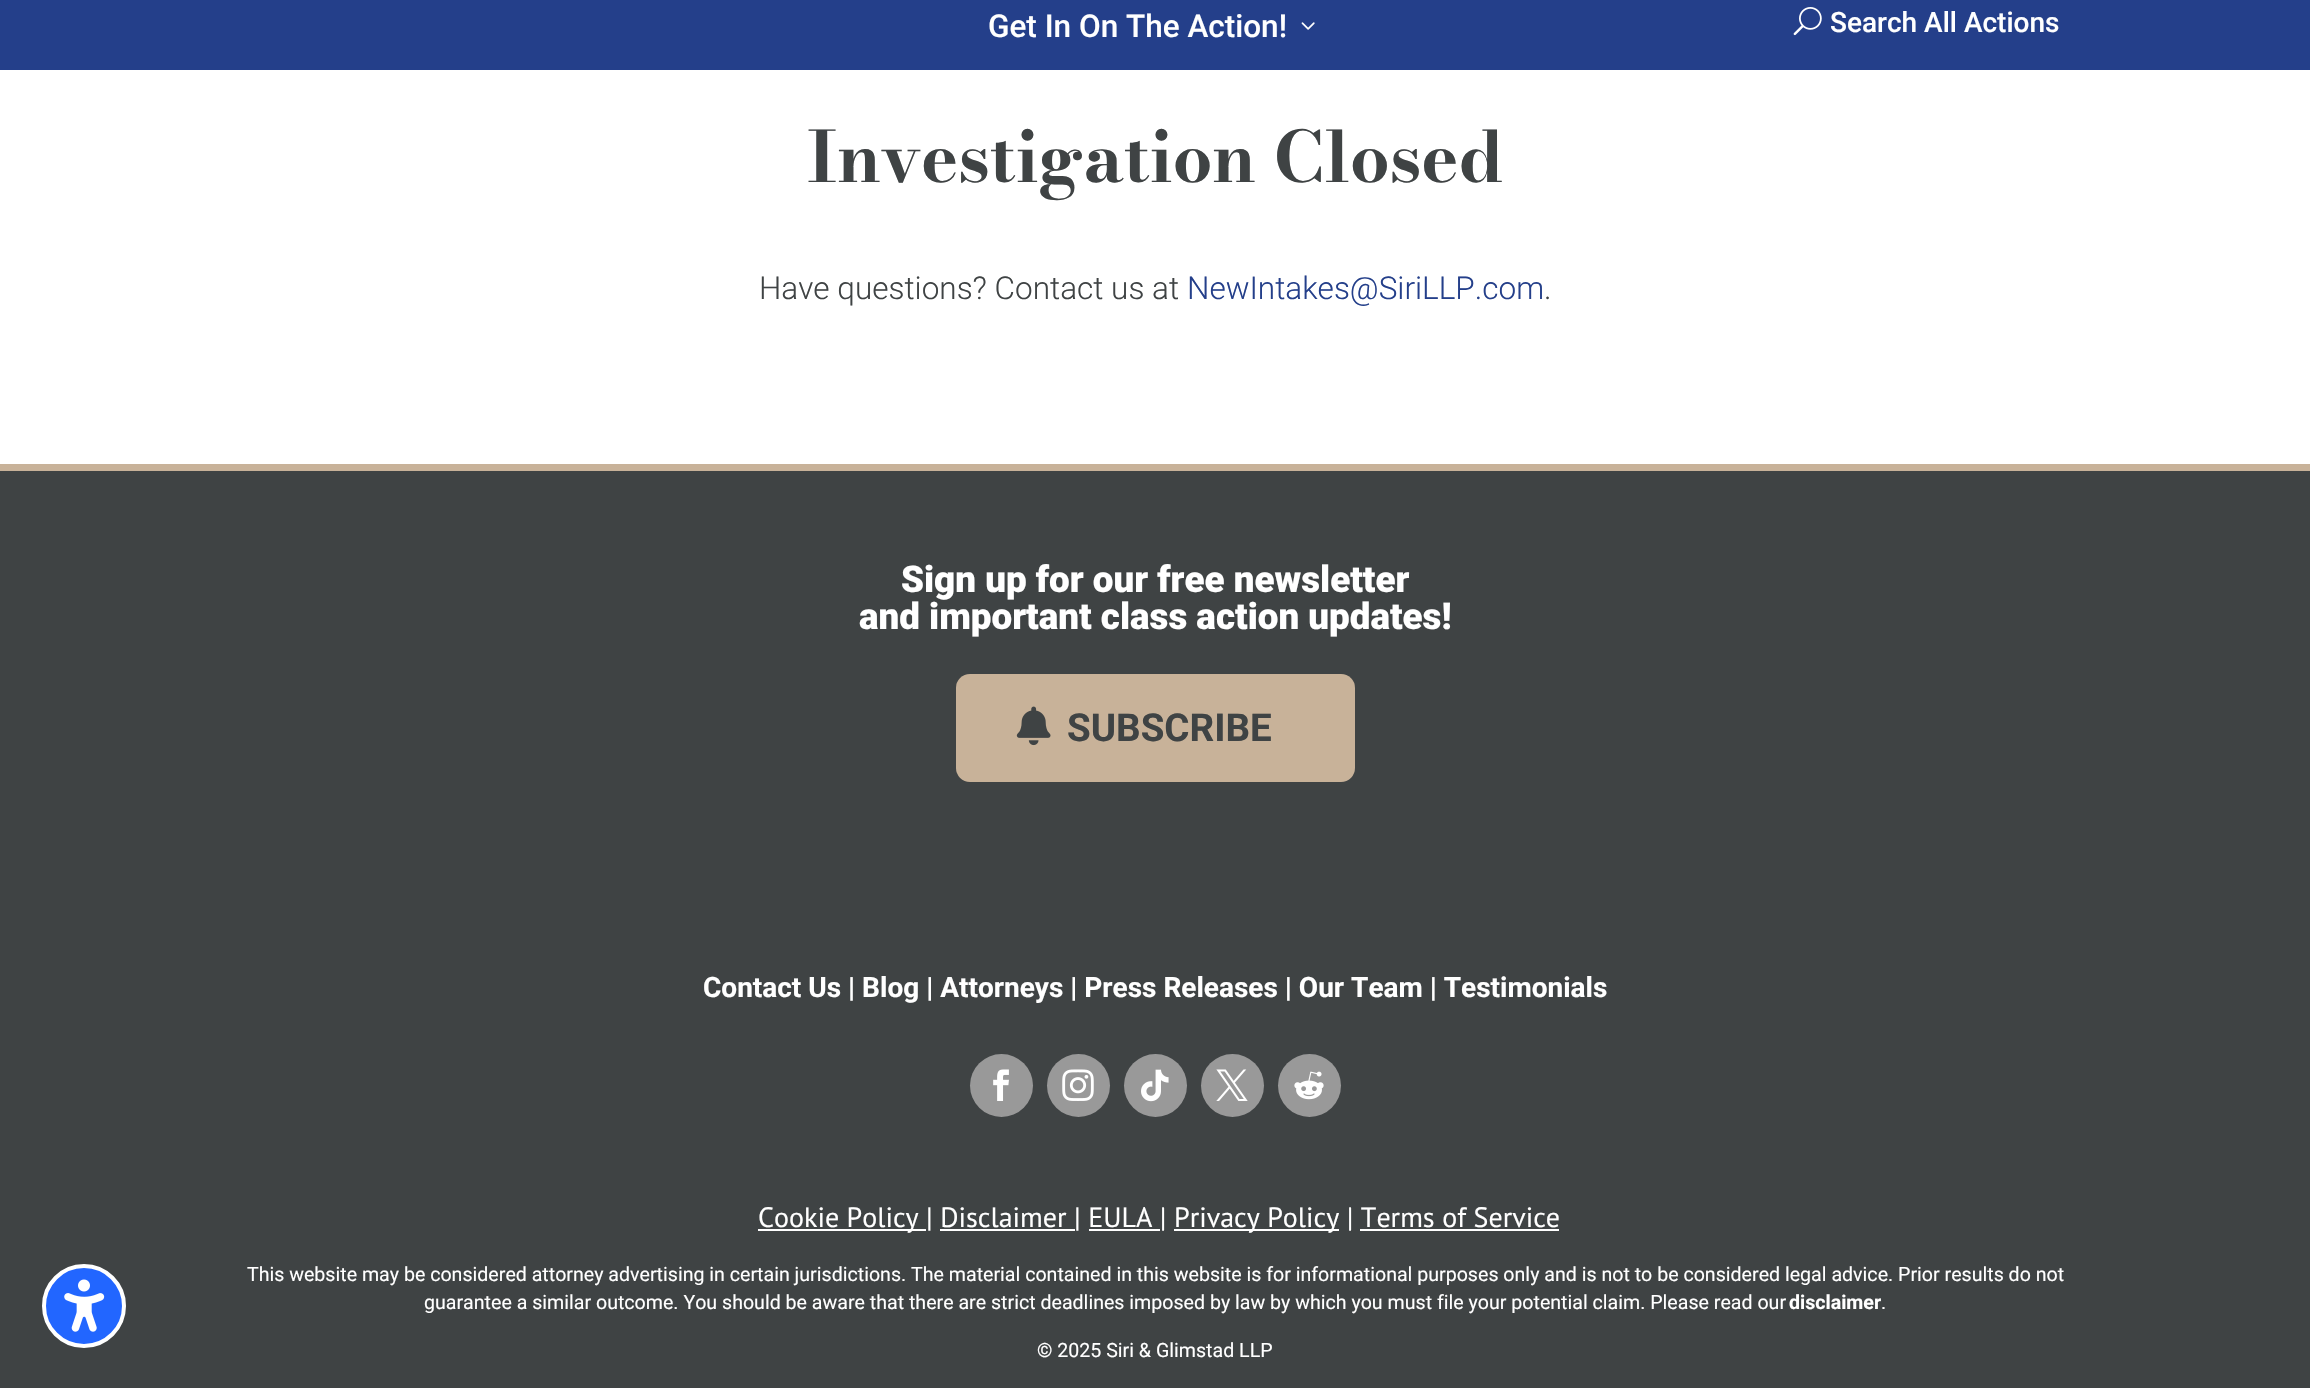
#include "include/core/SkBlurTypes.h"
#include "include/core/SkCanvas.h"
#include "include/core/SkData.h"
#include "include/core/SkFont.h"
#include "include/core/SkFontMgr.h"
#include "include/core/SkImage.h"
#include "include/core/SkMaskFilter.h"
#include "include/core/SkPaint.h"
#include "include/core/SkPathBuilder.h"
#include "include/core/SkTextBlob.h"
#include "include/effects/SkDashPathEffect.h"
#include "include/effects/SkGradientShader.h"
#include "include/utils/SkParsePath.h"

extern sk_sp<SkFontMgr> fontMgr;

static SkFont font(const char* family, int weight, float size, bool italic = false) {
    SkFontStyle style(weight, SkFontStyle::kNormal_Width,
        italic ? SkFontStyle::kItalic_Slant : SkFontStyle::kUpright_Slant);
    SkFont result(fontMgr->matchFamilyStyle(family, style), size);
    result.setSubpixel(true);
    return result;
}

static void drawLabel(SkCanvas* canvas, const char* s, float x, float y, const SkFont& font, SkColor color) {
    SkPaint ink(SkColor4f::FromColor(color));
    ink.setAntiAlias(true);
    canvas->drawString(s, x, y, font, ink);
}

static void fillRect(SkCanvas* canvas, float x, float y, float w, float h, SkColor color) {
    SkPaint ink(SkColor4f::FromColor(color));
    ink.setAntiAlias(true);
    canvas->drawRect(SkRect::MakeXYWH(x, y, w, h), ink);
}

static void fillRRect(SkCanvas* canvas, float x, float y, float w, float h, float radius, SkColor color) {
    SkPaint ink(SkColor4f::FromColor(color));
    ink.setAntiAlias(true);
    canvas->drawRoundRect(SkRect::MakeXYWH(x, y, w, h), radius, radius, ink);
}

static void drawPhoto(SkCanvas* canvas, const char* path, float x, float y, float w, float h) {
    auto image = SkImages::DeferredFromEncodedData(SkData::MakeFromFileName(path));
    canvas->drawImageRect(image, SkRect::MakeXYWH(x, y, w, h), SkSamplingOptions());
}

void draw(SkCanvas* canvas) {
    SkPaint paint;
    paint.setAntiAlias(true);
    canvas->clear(0xFFFFFFFF);
    fillRect(canvas, 0, 471, 2310, 917, 0xFF3F4344);
    paint.setColor(0xFF2266FF);
    canvas->drawCircle(84, 1306, 40, paint);
    paint.setStroke(true);
    paint.setStrokeWidth(4);
    paint.setColor(0xFFFFFFFF);
    canvas->drawCircle(84, 1306, 40, paint);
    drawPhoto(canvas, "assets/img1.png", 64, 1279, 41, 53);
    fillRect(canvas, 0, 0, 2310, 70, 0xFF243F8A);
    SkFont font1 = font("Roboto", 500, 31.5f);
    drawLabel(canvas, "Get In On The Action!", 988, 37, font1, 0xFFFFFFFF);
    drawPhoto(canvas, "assets/img2.png", 1301, 22, 14, 8);
    drawPhoto(canvas, "assets/img3.png", 1793, 7, 29, 29);
    SkFont font2 = font("Roboto", 500, 28);
    drawLabel(canvas, "Search All Actions", 1830, 32, font2, 0xFFFFFFFF);
    SkFont font3 = font("Bodoni Moda", 700, 70);
    drawLabel(canvas, "Investigation Closed", 807, 182, font3, 0xFF3F4344);
    SkFont font4 = font("Roboto", 300, 31.5f);
    drawLabel(canvas, "Have questions? Contact us at", 759, 299, font4, 0xFF3F4344);
    drawLabel(canvas, "NewIntakes@SiriLLP.com", 1187, 299, font4, 0xFF243F8A);
    drawLabel(canvas, ".", 1544, 299, font4, 0xFF3F4344);
    fillRect(canvas, 0, 464, 2310, 7, 0xFFC8B299);
    SkFont font5 = font("Roboto", 900, 36.75f);
    drawLabel(canvas, "Sign up for our free newsletter", 901, 592, font5, 0xFFFFFFFF);
    drawLabel(canvas, "and important class action updates!", 859, 629, font5, 0xFFFFFFFF);
    fillRRect(canvas, 956, 674, 399, 108, 14, 0xFFC8B299);
    drawPhoto(canvas, "assets/img4.png", 1016, 706, 35, 40);
    SkFont font6 = font("Roboto", 700, 38.5f);
    drawLabel(canvas, "SUBSCRIBE", 1067, 741, font6, 0xFF3F4344);
    SkFont font7 = font("Roboto", 700, 28);
    drawLabel(canvas, "Contact Us | Blog | Attorneys | Press Releases | Our Team | Testimonials", 703, 997, font7, 0xFFFFFFFF);
    paint.setStroke(false);
    paint.setColor(0xFF999999);
    canvas->drawCircle(1001.5f, 1085.5f, 31.5f, paint);
    drawPhoto(canvas, "assets/img5.png", 993, 1069, 16, 32);
    canvas->drawCircle(1078.5f, 1085.5f, 31.5f, paint);
    drawPhoto(canvas, "assets/img6.png", 1062, 1069, 32, 32);
    canvas->drawCircle(1155.5f, 1085.5f, 31.5f, paint);
    drawPhoto(canvas, "assets/img7.png", 1141, 1069, 28, 33);
    canvas->drawCircle(1232.5f, 1085.5f, 31.5f, paint);
    drawPhoto(canvas, "assets/img8.png", 1216, 1069, 32, 32);
    canvas->drawCircle(1309.5f, 1085.5f, 31.5f, paint);
    drawPhoto(canvas, "assets/img9.png", 1294, 1071, 30, 29);
    fillRect(canvas, 758, 1229, 168, 2, 0xFFFFFFFF);
    SkFont font8 = font("PT Sans", 400, 28);
    drawLabel(canvas, "Cookie Policy | Disclaimer | EULA |", 758, 1227, font8, 0xFFFFFFFF);
    fillRect(canvas, 1174, 1229, 165, 2, 0xFFFFFFFF);
    drawLabel(canvas, "Privacy Policy | Terms of Service", 1174, 1227, font8, 0xFFFFFFFF);
    fillRect(canvas, 940, 1229, 135, 2, 0xFFFFFFFF);
    fillRect(canvas, 1089, 1229, 71, 2, 0xFFFFFFFF);
    fillRect(canvas, 1360, 1229, 199, 2, 0xFFFFFFFF);
    SkFont font9 = font("Roboto", 400, 19.6f);
    drawLabel(canvas, "This website may be considered attorney advertising in certain jurisdictions. The material contained in this website is for informational purposes only and is not to be considered legal advice. Prior results do not", 247, 1281, font9, 0xFFFFFFFF);
    drawLabel(canvas, "guarantee a similar outcome. You should be aware that there are strict deadlines imposed by law by which you must file your potential claim. Please read our", 424, 1309, font9, 0xFFFFFFFF);
    SkFont font10 = font("Roboto", 700, 19.6f);
    drawLabel(canvas, "disclaimer", 1789, 1309, font10, 0xFFFFFFFF);
    drawLabel(canvas, ".", 1881, 1309, font9, 0xFFFFFFFF);
    drawLabel(canvas, "© 2025 Siri & Glimstad LLP", 1037, 1357, font9, 0xFFFFFFFF);
}
